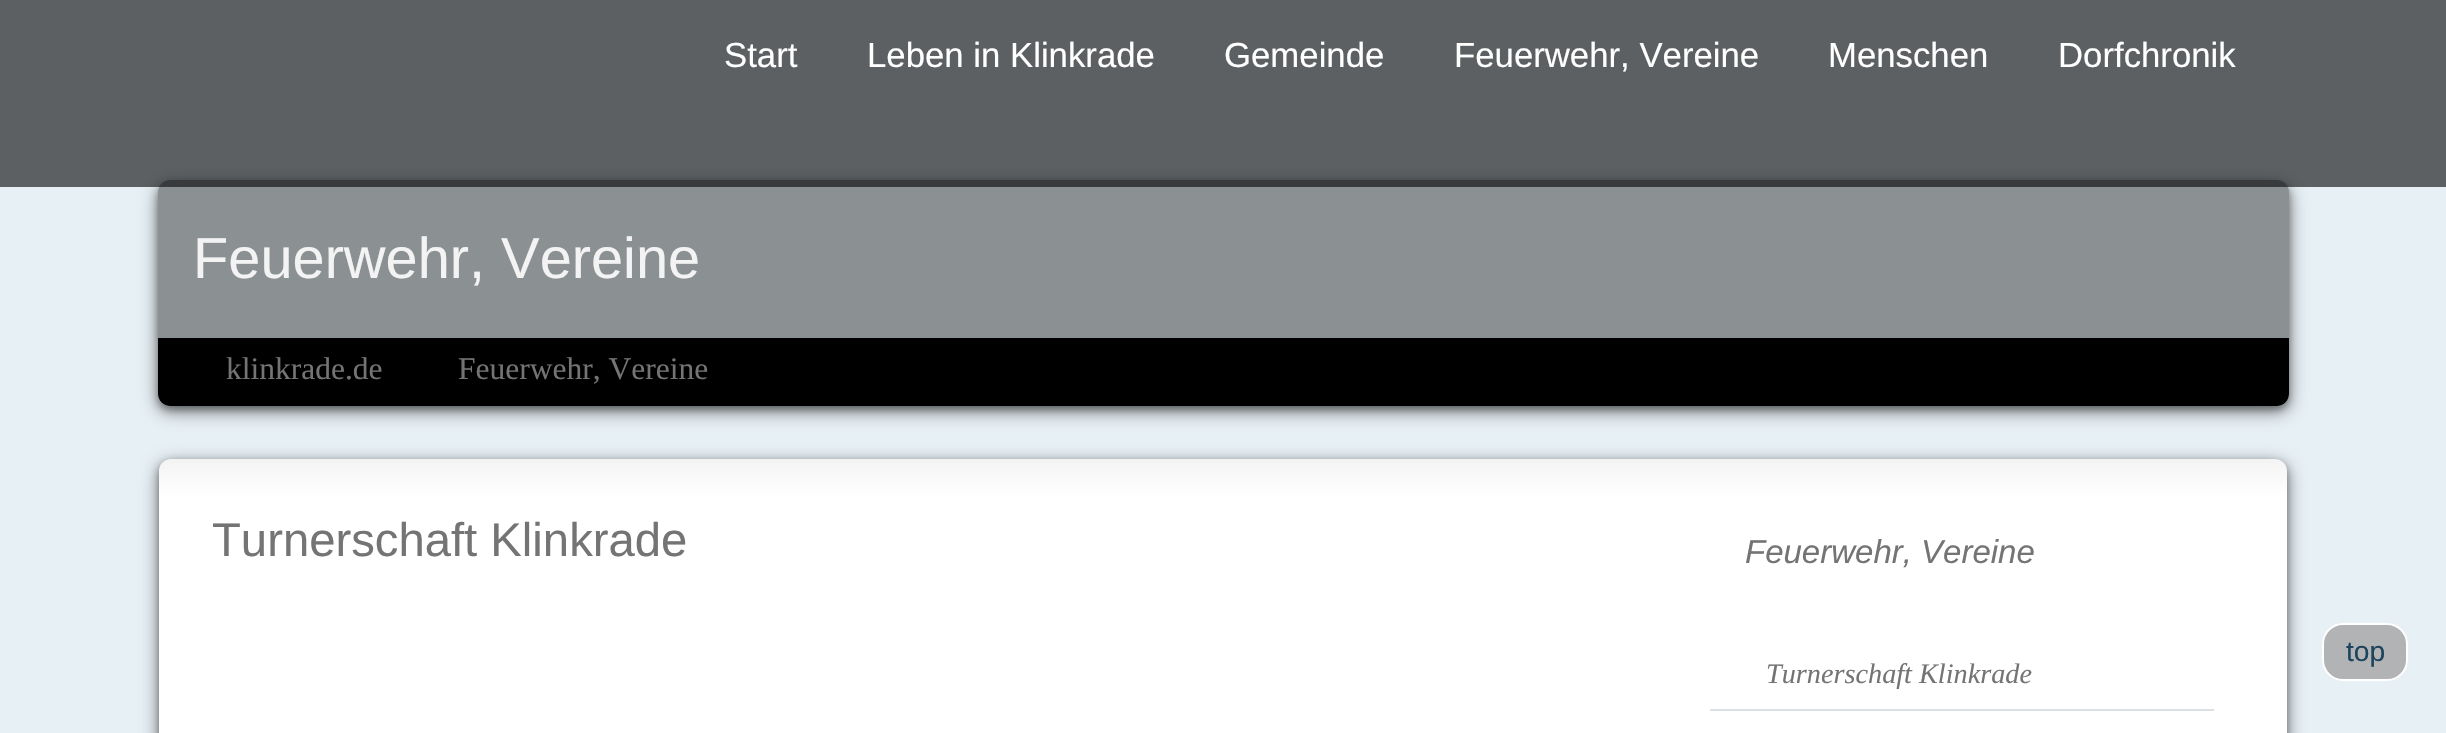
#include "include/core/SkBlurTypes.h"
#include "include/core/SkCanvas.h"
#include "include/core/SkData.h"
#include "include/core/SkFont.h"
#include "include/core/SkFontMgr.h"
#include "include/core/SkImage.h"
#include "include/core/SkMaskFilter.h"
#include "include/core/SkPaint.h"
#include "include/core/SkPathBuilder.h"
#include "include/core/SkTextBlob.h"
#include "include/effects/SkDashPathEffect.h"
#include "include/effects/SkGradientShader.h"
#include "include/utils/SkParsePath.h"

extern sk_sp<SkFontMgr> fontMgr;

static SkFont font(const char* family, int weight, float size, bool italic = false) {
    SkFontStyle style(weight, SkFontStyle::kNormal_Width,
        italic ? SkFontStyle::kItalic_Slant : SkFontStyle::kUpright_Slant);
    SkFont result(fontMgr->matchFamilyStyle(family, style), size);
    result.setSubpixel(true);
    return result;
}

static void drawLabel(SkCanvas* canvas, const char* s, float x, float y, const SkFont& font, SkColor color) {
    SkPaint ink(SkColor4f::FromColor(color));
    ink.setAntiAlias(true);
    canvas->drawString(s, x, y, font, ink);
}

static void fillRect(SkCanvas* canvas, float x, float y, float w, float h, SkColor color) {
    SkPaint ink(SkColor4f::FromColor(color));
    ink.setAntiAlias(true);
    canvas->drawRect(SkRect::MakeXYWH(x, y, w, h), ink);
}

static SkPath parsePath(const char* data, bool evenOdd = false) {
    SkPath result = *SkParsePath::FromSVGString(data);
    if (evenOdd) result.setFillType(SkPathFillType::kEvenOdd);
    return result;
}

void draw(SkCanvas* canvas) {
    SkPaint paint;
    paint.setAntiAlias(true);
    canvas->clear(0xFFE7F0F5);
    canvas->save();
    canvas->clipPath(parsePath("M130 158H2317V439H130ZM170 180H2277C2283.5 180 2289 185.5 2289 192V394C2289 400.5 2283.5 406 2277 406H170C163.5 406 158 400.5 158 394V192C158 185.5 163.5 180 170 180Z", true), true);
    paint.setColor(0x80000000);
    paint.setMaskFilter(SkMaskFilter::MakeBlur(kNormal_SkBlurStyle, 9));
    canvas->drawRoundRect(SkRect::MakeXYWH(158, 186, 2131, 225), 12, 12, paint);
    paint.setMaskFilter(nullptr);
    canvas->restore();
    canvas->save();
    canvas->clipPath(parsePath("M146 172H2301V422H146ZM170 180H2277C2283.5 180 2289 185.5 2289 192V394C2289 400.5 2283.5 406 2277 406H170C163.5 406 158 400.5 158 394V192C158 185.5 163.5 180 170 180Z", true), true);
    paint.setColor(0x4D000000);
    paint.setMaskFilter(SkMaskFilter::MakeBlur(kNormal_SkBlurStyle, 3.5f));
    canvas->drawRoundRect(SkRect::MakeXYWH(158, 184, 2131, 226), 12, 12, paint);
    paint.setMaskFilter(nullptr);
    canvas->restore();
    paint.setColor(0x66000000);
    canvas->drawPath(parsePath("M170 180H2277C2283.5 180 2289 185.5 2289 192V338H158V192C158 185.5 163.5 180 170 180Z"), paint);
    fillRect(canvas, 0, 0, 2446, 187, 0x99000000);
    SkFont font1 = font("Liberation Sans", 400, 34.75f);
    drawLabel(canvas, "Start", 724, 67, font1, 0xFFFFFFFF);
    drawLabel(canvas, "Leben in Klinkrade", 867, 67, font1, 0xFFFFFFFF);
    drawLabel(canvas, "Gemeinde", 1224, 67, font1, 0xFFFFFFFF);
    drawLabel(canvas, "Feuerwehr, Vereine", 1454, 67, font1, 0xFFFFFFFF);
    drawLabel(canvas, "Menschen", 1828, 67, font1, 0xFFFFFFFF);
    drawLabel(canvas, "Dorfchronik", 2058, 67, font1, 0xFFFFFFFF);
    SkFont font2 = font("Liberation Sans", 400, 57.75f);
    drawLabel(canvas, "Feuerwehr, Vereine", 193, 278, font2, 0xFFF3F3F3);
    paint.setColor(0xFF000000);
    canvas->drawPath(parsePath("M158 338H2289V394C2289 400.5 2283.5 406 2277 406H170C163.5 406 158 400.5 158 394Z"), paint);
    SkFont font3 = font("Liberation Serif", 400, 31.5f);
    drawLabel(canvas, "klinkrade.de", 226, 379, font3, 0xFF747474);
    drawLabel(canvas, "Feuerwehr, Vereine", 458, 379, font3, 0xFF747474);
    paint.setColor(0x80000000);
    paint.setMaskFilter(SkMaskFilter::MakeBlur(kNormal_SkBlurStyle, 9));
    canvas->drawRoundRect(SkRect::MakeXYWH(159, 464, 2128, 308), 12, 12, paint);
    paint.setMaskFilter(nullptr);
    paint.setColor(0x4D000000);
    paint.setMaskFilter(SkMaskFilter::MakeBlur(kNormal_SkBlurStyle, 3.5f));
    canvas->drawRoundRect(SkRect::MakeXYWH(159, 462, 2128, 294), 12, 12, paint);
    paint.setMaskFilter(nullptr);
    {
        const SkColor colors[] = {0xFFF3F3F3, 0xFFFFFFFF, 0xFFFFFFFF};
        const float stops[] = {0, 0.04f, 1};
        const SkPoint ends[] = {{1223, 458}, {1223, 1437}};
        paint.setShader(SkGradientShader::MakeLinear(ends, colors, stops, 3, SkTileMode::kClamp));
        paint.setAlpha(255);
    }
    canvas->drawRoundRect(SkRect::MakeXYWH(159, 459, 2128, 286), 12, 12, paint);
    SkFont font4 = font("Liberation Sans", 400, 47.25f);
    drawLabel(canvas, "Turnerschaft Klinkrade", 212, 556, font4, 0xFF747474);
    SkFont font5 = font("Liberation Sans", 400, 33, true);
    drawLabel(canvas, "Feuerwehr, Vereine", 1745, 563, font5, 0xFF747474);
    fillRect(canvas, 1710, 709, 504, 2, 0xFFDBE1E3);
    SkFont font6 = font("Liberation Serif", 400, 28.25f, true);
    drawLabel(canvas, "Turnerschaft Klinkrade", 1766, 683, font6, 0xFF747474);
    paint.setShader(nullptr);
    paint.setColor(0xFFB1B3B4);
    canvas->drawRoundRect(SkRect::MakeXYWH(2323, 624, 84, 56), 20, 20, paint);
    paint.setStroke(true);
    paint.setStrokeWidth(2);
    paint.setColor(0xFFFFFFFF);
    canvas->drawRoundRect(SkRect::MakeXYWH(2323, 624, 84, 56), 20, 20, paint);
    SkFont font7 = font("Liberation Sans", 400, 28.25f);
    drawLabel(canvas, "top", 2346, 661, font7, 0xFF1D445C);
}
